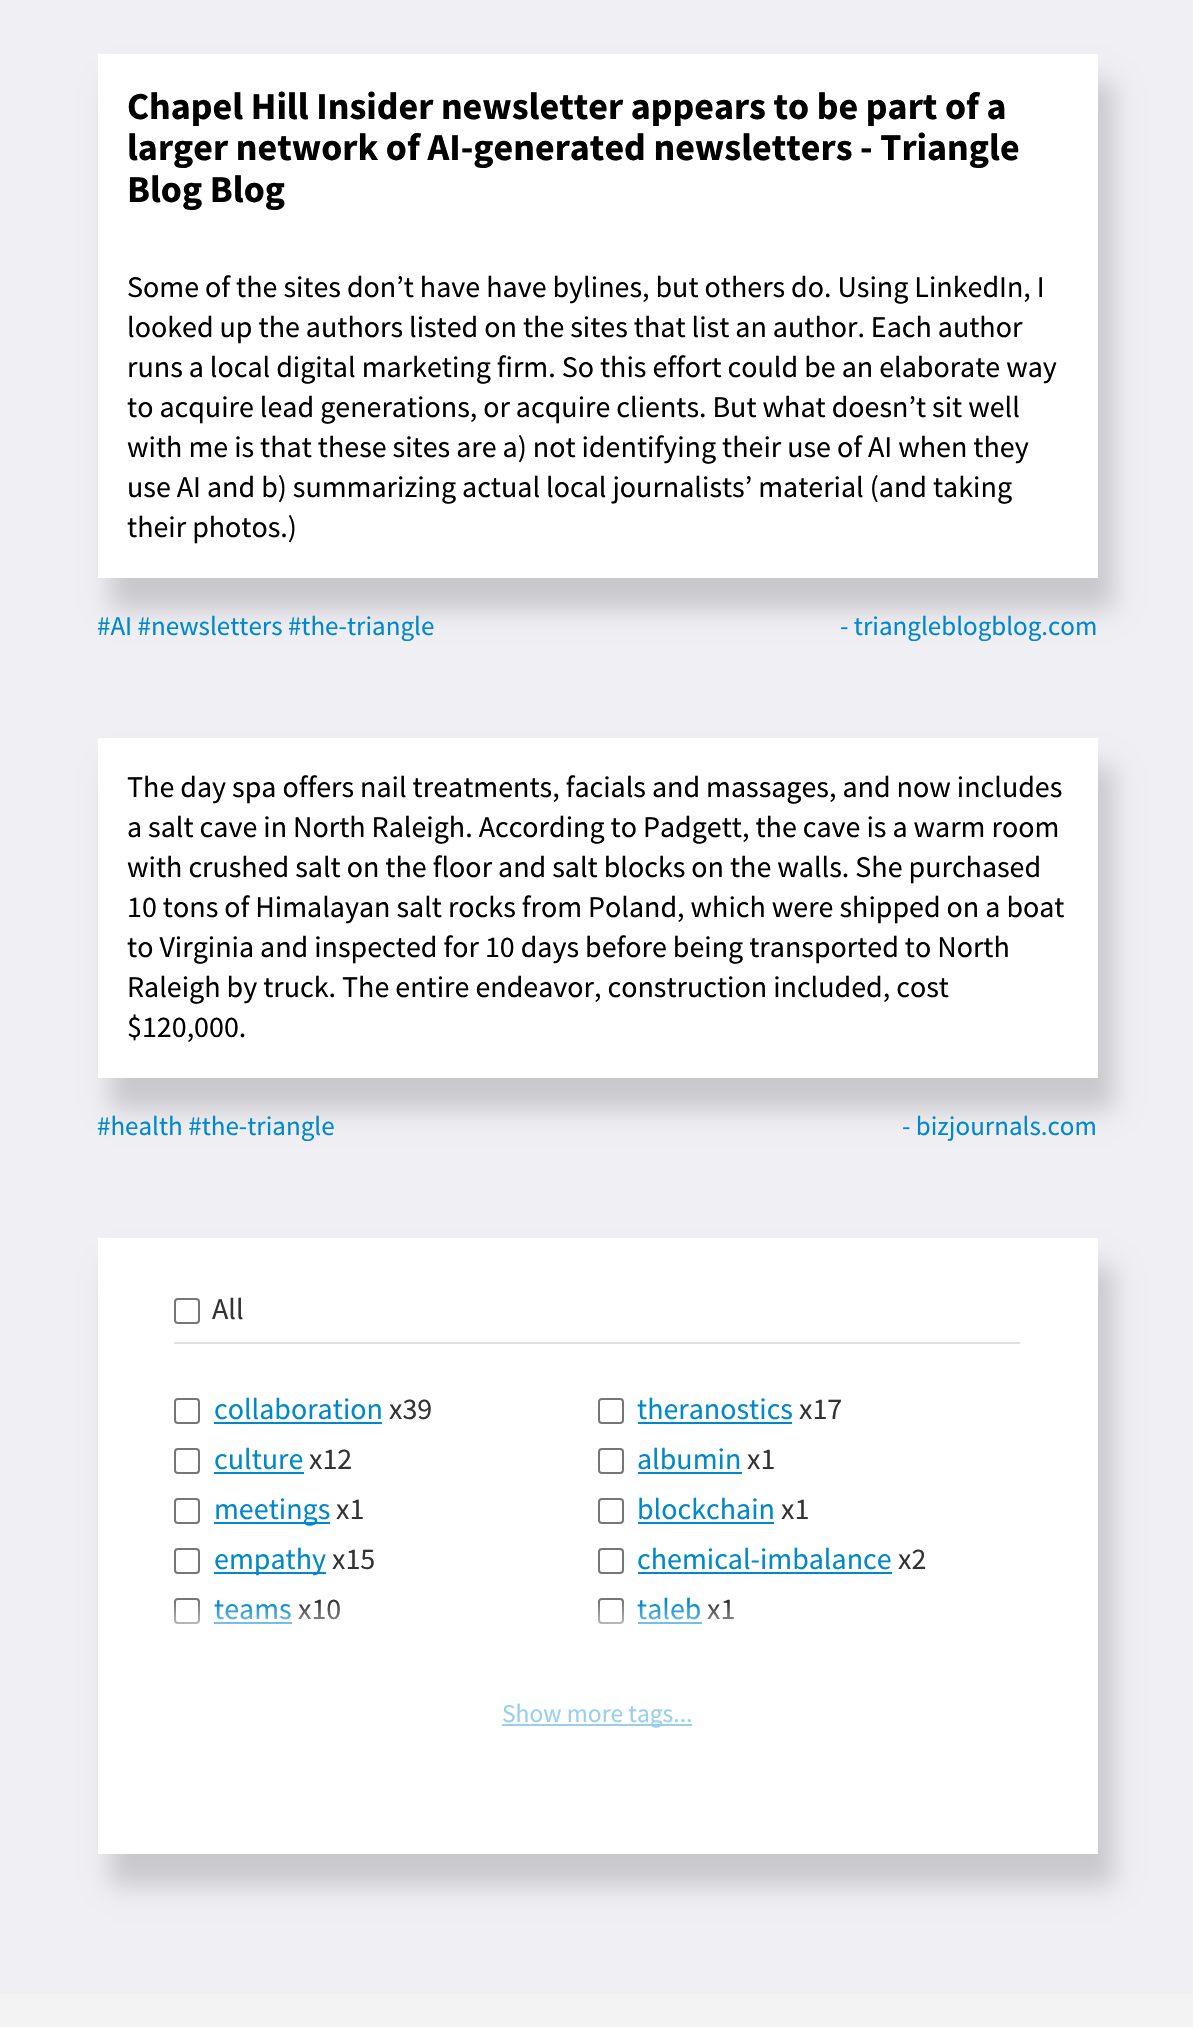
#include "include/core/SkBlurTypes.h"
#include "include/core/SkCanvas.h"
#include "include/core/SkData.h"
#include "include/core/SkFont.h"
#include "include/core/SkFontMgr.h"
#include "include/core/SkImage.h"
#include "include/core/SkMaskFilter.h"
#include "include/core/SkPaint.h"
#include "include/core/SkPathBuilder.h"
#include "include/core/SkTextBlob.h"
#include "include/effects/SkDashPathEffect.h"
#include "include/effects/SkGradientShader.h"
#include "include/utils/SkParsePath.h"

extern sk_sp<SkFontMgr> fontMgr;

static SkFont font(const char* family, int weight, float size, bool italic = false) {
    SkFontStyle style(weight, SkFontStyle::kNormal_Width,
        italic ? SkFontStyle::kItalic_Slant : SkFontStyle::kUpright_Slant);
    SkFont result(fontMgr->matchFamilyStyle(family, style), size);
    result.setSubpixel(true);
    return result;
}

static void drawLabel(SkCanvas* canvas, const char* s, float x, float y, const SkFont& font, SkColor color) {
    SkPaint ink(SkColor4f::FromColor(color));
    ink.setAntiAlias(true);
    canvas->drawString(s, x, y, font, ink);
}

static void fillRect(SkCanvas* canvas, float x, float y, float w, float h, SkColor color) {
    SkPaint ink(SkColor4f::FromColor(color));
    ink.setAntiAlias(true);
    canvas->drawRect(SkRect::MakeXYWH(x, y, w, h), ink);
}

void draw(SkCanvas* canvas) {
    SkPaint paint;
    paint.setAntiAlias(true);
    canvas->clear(0xFFF3F3F3);
    fillRect(canvas, 0, 0, 1193, 1994, 0xFFEFEFF4);
    paint.setColor(0xFFC9C9CD);
    paint.setMaskFilter(SkMaskFilter::MakeBlur(kNormal_SkBlurStyle, 12));
    canvas->drawRect(SkRect::MakeXYWH(110, 82, 1004, 528), paint);
    paint.setMaskFilter(nullptr);
    fillRect(canvas, 98, 54, 1000, 524, 0xFFFFFFFF);
    SkFont font1 = font("Source Sans Pro", 700, 38);
    drawLabel(canvas, "Chapel Hill Insider newsletter appears to be part of a", 127, 119, font1, 0xFF000000);
    drawLabel(canvas, "larger network of AI-generated newsletters - Triangle", 127, 160, font1, 0xFF000000);
    drawLabel(canvas, "Blog Blog", 127, 202, font1, 0xFF000000);
    SkFont font2 = font("Source Sans Pro", 400, 30);
    drawLabel(canvas, "Some of the sites don’t have have bylines, but others do. Using LinkedIn, I", 127, 297, font2, 0xFF000000);
    drawLabel(canvas, "looked up the authors listed on the sites that list an author. Each author", 127, 337, font2, 0xFF000000);
    drawLabel(canvas, "runs a local digital marketing firm. So this effort could be an elaborate way", 127, 377, font2, 0xFF000000);
    drawLabel(canvas, "to acquire lead generations, or acquire clients. But what doesn’t sit well", 127, 417, font2, 0xFF000000);
    drawLabel(canvas, "with me is that these sites are a) not identifying their use of AI when they", 127, 457, font2, 0xFF000000);
    drawLabel(canvas, "use AI and b) summarizing actual local journalists’ material (and taking", 127, 497, font2, 0xFF000000);
    drawLabel(canvas, "their photos.)", 127, 537, font2, 0xFF000000);
    SkFont font3 = font("Source Sans Pro", 400, 27);
    drawLabel(canvas, "#AI #newsletters #the-triangle", 97, 635, font3, 0xFF0088CC);
    drawLabel(canvas, "- triangleblogblog.com", 840, 635, font3, 0xFF0088CC);
    paint.setMaskFilter(SkMaskFilter::MakeBlur(kNormal_SkBlurStyle, 12));
    canvas->drawRect(SkRect::MakeXYWH(110, 766, 1004, 344), paint);
    paint.setMaskFilter(nullptr);
    fillRect(canvas, 98, 738, 1000, 340, 0xFFFFFFFF);
    drawLabel(canvas, "The day spa offers nail treatments, facials and massages, and now includes", 127, 797, font2, 0xFF000000);
    drawLabel(canvas, "a salt cave in North Raleigh. According to Padgett, the cave is a warm room", 127, 837, font2, 0xFF000000);
    drawLabel(canvas, "with crushed salt on the floor and salt blocks on the walls. She purchased", 127, 877, font2, 0xFF000000);
    drawLabel(canvas, "10 tons of Himalayan salt rocks from Poland, which were shipped on a boat", 127, 917, font2, 0xFF000000);
    drawLabel(canvas, "to Virginia and inspected for 10 days before being transported to North", 127, 957, font2, 0xFF000000);
    drawLabel(canvas, "Raleigh by truck. The entire endeavor, construction included, cost", 127, 997, font2, 0xFF000000);
    drawLabel(canvas, "$120,000.", 127, 1037, font2, 0xFF000000);
    drawLabel(canvas, "#health #the-triangle", 97, 1135, font3, 0xFF0088CC);
    drawLabel(canvas, "- bizjournals.com", 902, 1135, font3, 0xFF0088CC);
    paint.setMaskFilter(SkMaskFilter::MakeBlur(kNormal_SkBlurStyle, 12));
    canvas->drawRect(SkRect::MakeXYWH(110, 1266, 1004, 620), paint);
    paint.setMaskFilter(nullptr);
    fillRect(canvas, 98, 1238, 1000, 616, 0xFFFFFFFF);
    fillRect(canvas, 174, 1342, 846, 2, 0xFFE0E0E0);
    paint.setStroke(true);
    paint.setStrokeWidth(2);
    paint.setColor(0xFF767676);
    canvas->drawRoundRect(SkRect::MakeXYWH(175, 1299, 24, 24), 3, 3, paint);
    drawLabel(canvas, "All", 212, 1319, font2, 0xFF333333);
    canvas->drawRoundRect(SkRect::MakeXYWH(175, 1399, 24, 24), 3, 3, paint);
    drawLabel(canvas, "collaboration", 214, 1419, font2, 0xFF0088CC);
    fillRect(canvas, 214, 1422, 168, 2, 0xFF0088CC);
    drawLabel(canvas, "x39", 389, 1419, font2, 0xFF333333);
    canvas->drawRoundRect(SkRect::MakeXYWH(175, 1449, 24, 24), 3, 3, paint);
    drawLabel(canvas, "culture", 214, 1469, font2, 0xFF0088CC);
    fillRect(canvas, 214, 1472, 90, 2, 0xFF0088CC);
    drawLabel(canvas, "x12", 309, 1469, font2, 0xFF333333);
    canvas->drawRoundRect(SkRect::MakeXYWH(175, 1499, 24, 24), 3, 3, paint);
    fillRect(canvas, 214, 1522, 116, 2, 0xFF0088CC);
    drawLabel(canvas, "meetings", 214, 1519, font2, 0xFF0088CC);
    drawLabel(canvas, "x1", 336, 1519, font2, 0xFF333333);
    canvas->drawRoundRect(SkRect::MakeXYWH(175, 1549, 24, 24), 3, 3, paint);
    fillRect(canvas, 214, 1572, 112, 2, 0xFF0088CC);
    drawLabel(canvas, "empathy", 214, 1569, font2, 0xFF0088CC);
    drawLabel(canvas, "x15", 332, 1569, font2, 0xFF333333);
    canvas->drawRoundRect(SkRect::MakeXYWH(175, 1599, 24, 24), 3, 3, paint);
    drawLabel(canvas, "teams", 214, 1619, font2, 0xFF0088CC);
    fillRect(canvas, 214, 1622, 78, 2, 0xFF0088CC);
    drawLabel(canvas, "x10", 298, 1619, font2, 0xFF333333);
    canvas->drawRoundRect(SkRect::MakeXYWH(599, 1399, 24, 24), 3, 3, paint);
    drawLabel(canvas, "theranostics", 637, 1419, font2, 0xFF0088CC);
    fillRect(canvas, 638, 1422, 154, 2, 0xFF0088CC);
    drawLabel(canvas, "x17", 799, 1419, font2, 0xFF333333);
    canvas->drawRoundRect(SkRect::MakeXYWH(599, 1449, 24, 24), 3, 3, paint);
    drawLabel(canvas, "albumin", 637, 1469, font2, 0xFF0088CC);
    fillRect(canvas, 638, 1472, 104, 2, 0xFF0088CC);
    drawLabel(canvas, "x1", 747, 1469, font2, 0xFF333333);
    canvas->drawRoundRect(SkRect::MakeXYWH(599, 1499, 24, 24), 3, 3, paint);
    drawLabel(canvas, "blockchain", 637, 1519, font2, 0xFF0088CC);
    fillRect(canvas, 638, 1522, 136, 2, 0xFF0088CC);
    drawLabel(canvas, "x1", 781, 1519, font2, 0xFF333333);
    canvas->drawRoundRect(SkRect::MakeXYWH(599, 1549, 24, 24), 3, 3, paint);
    drawLabel(canvas, "chemical-imbalance", 637, 1569, font2, 0xFF0088CC);
    fillRect(canvas, 638, 1572, 254, 2, 0xFF0088CC);
    drawLabel(canvas, "x2", 898, 1569, font2, 0xFF333333);
    canvas->drawRoundRect(SkRect::MakeXYWH(599, 1599, 24, 24), 3, 3, paint);
    drawLabel(canvas, "taleb", 637, 1619, font2, 0xFF0088CC);
    fillRect(canvas, 638, 1622, 64, 2, 0xFF0088CC);
    drawLabel(canvas, "x1", 707, 1619, font2, 0xFF333333);
    paint.setStroke(false);
    {
        const SkColor colors[] = {0xFFFFFFFF, 0x00FFFFFF};
        const float stops[] = {0, 1};
        const SkPoint ends[] = {{598, 1648}, {598, 1602}};
        paint.setShader(SkGradientShader::MakeLinear(ends, colors, stops, 2, SkTileMode::kClamp));
        paint.setAlpha(255);
    }
    canvas->drawRect(SkRect::MakeXYWH(174, 1603, 560, 21), paint);
    fillRect(canvas, 502, 1724, 190, 2, 0xFF99CFEB);
    SkFont font4 = font("Source Sans Pro", 400, 25.5f);
    drawLabel(canvas, "Show more tags...", 502, 1722, font4, 0xFF99CFEB);
}
